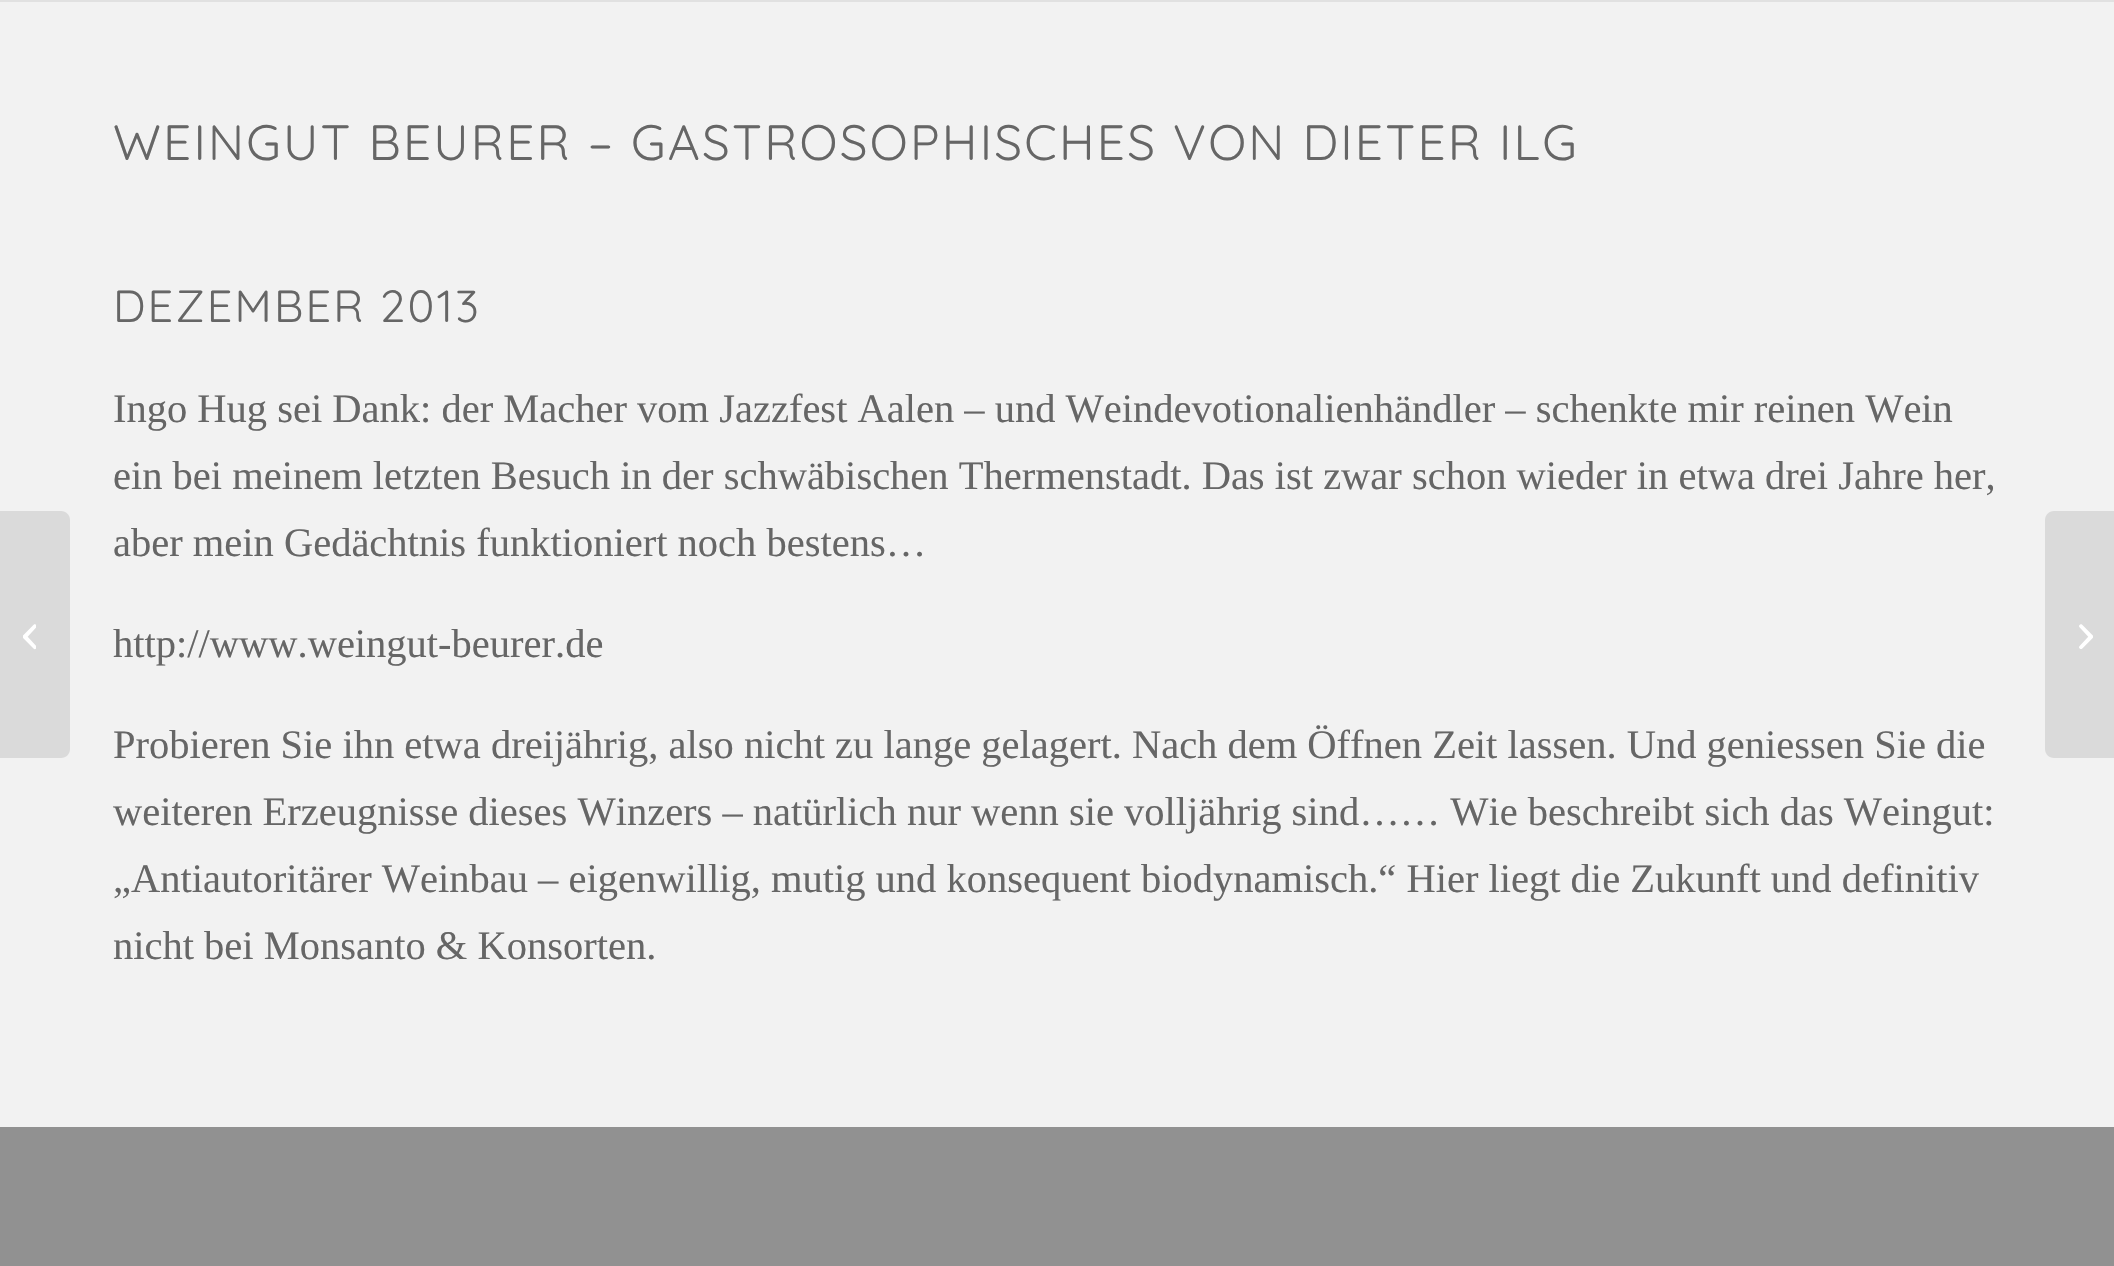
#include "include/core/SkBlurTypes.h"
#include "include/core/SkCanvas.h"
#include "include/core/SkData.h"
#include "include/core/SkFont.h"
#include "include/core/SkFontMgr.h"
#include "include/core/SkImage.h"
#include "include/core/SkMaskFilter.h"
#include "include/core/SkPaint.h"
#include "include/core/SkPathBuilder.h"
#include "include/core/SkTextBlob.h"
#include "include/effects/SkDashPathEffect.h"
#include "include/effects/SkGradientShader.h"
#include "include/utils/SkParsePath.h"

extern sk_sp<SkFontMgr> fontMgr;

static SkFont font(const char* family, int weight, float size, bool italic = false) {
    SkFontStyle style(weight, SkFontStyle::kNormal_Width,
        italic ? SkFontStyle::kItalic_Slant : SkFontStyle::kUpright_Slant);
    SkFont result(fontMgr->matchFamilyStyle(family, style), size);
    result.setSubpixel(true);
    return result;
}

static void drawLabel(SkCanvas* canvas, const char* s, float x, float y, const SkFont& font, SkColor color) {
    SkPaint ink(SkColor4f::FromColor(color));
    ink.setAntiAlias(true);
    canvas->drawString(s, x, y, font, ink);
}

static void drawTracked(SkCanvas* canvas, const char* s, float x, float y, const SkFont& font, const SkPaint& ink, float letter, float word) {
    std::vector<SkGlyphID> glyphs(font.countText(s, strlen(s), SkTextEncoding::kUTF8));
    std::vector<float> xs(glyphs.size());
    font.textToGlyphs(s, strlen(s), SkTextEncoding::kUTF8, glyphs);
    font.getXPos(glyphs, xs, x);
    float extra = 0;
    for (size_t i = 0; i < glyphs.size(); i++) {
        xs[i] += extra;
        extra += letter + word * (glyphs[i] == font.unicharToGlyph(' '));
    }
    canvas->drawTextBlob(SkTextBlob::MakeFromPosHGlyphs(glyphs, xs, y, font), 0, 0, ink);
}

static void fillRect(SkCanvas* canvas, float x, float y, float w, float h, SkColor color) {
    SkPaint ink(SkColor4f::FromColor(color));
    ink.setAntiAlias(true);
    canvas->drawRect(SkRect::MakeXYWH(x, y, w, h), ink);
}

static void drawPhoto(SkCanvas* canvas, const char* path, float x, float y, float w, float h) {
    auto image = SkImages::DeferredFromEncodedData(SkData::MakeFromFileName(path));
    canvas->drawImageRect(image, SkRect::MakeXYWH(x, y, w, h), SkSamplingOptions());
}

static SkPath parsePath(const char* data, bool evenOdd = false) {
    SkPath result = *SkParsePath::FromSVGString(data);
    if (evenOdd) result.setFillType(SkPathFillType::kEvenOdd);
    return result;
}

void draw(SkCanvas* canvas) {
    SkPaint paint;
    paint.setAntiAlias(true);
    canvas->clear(0xFFF2F2F2);
    fillRect(canvas, 0, 0, 2114, 2, 0xFFE1E1E1);
    paint.setColor(0xFFDADADA);
    canvas->drawPath(parsePath("M0 511H61C66 511 70 515 70 520V749C70 754 66 758 61 758H0Z"), paint);
    drawPhoto(canvas, "assets/img1.png", 23, 624, 13, 26);
    SkFont font1 = font("Quicksand", 400, 49.5f);
    paint.setColor(0xFF666666);
    drawTracked(canvas, "WEINGUT BEURER – GASTROSOPHISCHES VON DIETER ILG", 113, 160, font1, paint, 2.25f, 0);
    SkFont font2 = font("Quicksand", 400, 45);
    drawTracked(canvas, "DEZEMBER 2013", 113, 322, font2, paint, 2.25f, 0);
    SkFont font3 = font("Liberation Serif", 400, 40.5f);
    drawLabel(canvas, "Ingo Hug sei Dank: der Macher vom Jazzfest Aalen – und Weindevotionalienhändler – schenkte mir reinen Wein", 113, 422, font3, 0xFF666666);
    drawLabel(canvas, "ein bei meinem letzten Besuch in der schwäbischen Thermenstadt. Das ist zwar schon wieder in etwa drei Jahre her,", 113, 489, font3, 0xFF666666);
    drawLabel(canvas, "aber mein Gedächtnis funktioniert noch bestens…", 113, 556, font3, 0xFF666666);
    drawLabel(canvas, "http://www.weingut-beurer.de", 113, 657, font3, 0xFF666666);
    drawLabel(canvas, "Probieren Sie ihn etwa dreijährig, also nicht zu lange gelagert. Nach dem Öffnen Zeit lassen. Und geniessen Sie die", 113, 758, font3, 0xFF666666);
    drawLabel(canvas, "weiteren Erzeugnisse dieses Winzers – natürlich nur wenn sie volljährig sind…… Wie beschreibt sich das Weingut:", 113, 825, font3, 0xFF666666);
    drawLabel(canvas, "„Antiautoritärer Weinbau – eigenwillig, mutig und konsequent biodynamisch.“ Hier liegt die Zukunft und definitiv", 113, 892, font3, 0xFF666666);
    drawLabel(canvas, "nicht bei Monsanto & Konsorten.", 113, 959, font3, 0xFF666666);
    fillRect(canvas, 0, 1127, 2114, 139, 0xFF919191);
    paint.setColor(0xFFDADADA);
    canvas->drawPath(parsePath("M2054 511H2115V758H2054C2049 758 2045 754 2045 749V520C2045 515 2049 511 2054 511Z"), paint);
    drawPhoto(canvas, "assets/img2.png", 2079, 624, 14, 25);
}
